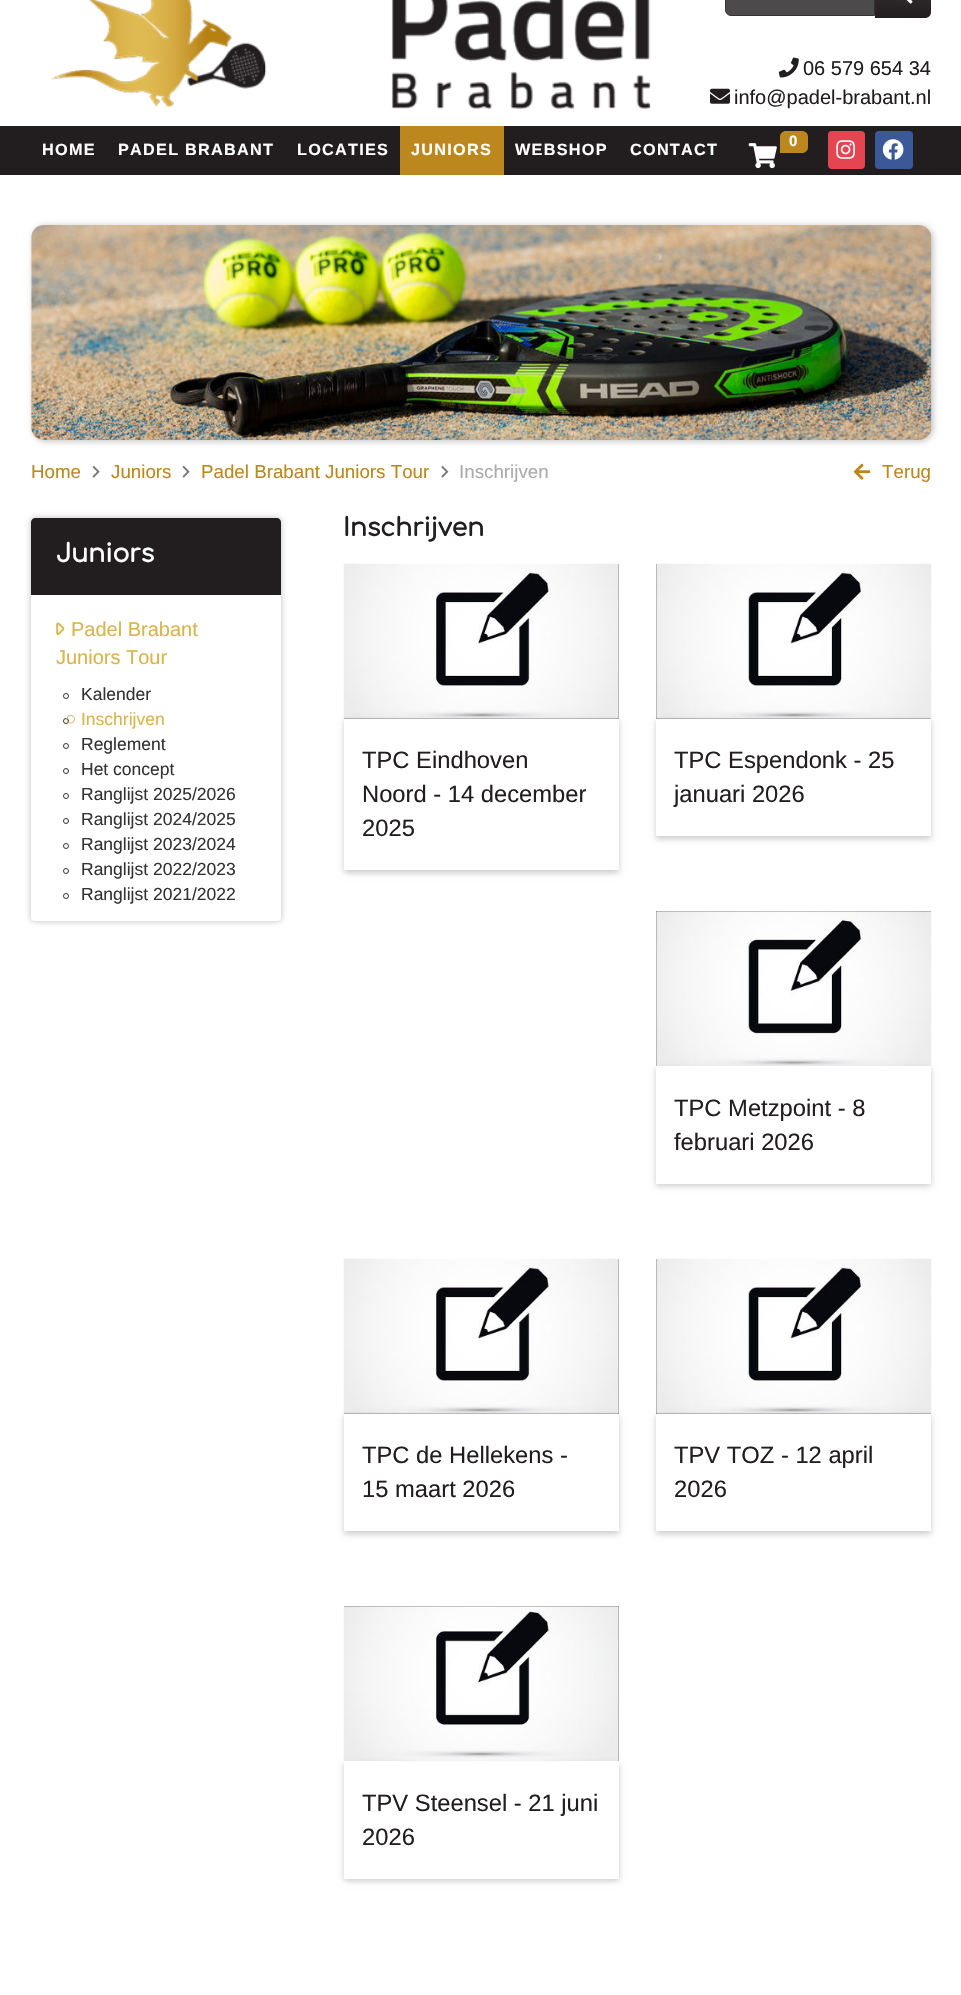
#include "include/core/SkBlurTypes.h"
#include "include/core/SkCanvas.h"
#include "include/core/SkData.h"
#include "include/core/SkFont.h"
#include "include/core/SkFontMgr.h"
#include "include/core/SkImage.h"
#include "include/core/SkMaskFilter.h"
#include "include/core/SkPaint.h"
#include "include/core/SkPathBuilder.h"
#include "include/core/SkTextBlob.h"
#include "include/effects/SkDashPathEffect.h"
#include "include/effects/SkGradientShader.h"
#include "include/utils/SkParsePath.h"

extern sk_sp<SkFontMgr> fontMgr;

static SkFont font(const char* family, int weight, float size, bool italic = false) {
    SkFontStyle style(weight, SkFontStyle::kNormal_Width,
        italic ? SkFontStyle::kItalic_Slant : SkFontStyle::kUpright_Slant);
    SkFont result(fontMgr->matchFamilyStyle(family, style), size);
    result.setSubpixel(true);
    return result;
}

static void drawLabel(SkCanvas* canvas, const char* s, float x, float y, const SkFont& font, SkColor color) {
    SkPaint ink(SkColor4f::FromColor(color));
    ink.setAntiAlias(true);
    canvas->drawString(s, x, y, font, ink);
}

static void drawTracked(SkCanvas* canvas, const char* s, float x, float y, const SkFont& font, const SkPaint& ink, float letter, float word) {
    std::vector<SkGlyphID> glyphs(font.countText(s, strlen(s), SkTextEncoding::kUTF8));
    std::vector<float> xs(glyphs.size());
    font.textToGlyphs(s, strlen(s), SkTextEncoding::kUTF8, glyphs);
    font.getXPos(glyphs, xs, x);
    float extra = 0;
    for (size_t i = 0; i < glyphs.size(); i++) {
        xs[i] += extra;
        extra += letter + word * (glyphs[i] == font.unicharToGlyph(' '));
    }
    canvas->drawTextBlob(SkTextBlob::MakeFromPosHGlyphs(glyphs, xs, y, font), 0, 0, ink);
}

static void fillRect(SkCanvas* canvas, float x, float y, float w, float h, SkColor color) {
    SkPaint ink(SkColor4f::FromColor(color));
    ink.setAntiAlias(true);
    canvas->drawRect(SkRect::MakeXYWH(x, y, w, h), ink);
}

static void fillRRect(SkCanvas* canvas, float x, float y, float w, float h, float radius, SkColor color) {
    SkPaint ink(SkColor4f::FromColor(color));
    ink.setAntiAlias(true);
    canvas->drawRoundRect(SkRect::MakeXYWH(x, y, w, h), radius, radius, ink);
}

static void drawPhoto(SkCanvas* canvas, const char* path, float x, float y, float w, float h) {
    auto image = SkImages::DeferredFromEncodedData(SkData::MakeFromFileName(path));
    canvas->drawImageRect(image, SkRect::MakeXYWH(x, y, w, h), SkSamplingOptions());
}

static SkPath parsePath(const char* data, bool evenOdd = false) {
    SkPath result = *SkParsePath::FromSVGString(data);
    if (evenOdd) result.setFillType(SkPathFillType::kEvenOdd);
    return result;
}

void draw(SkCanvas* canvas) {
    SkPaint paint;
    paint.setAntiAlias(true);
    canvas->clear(0xFFFFFFFF);
    drawPhoto(canvas, "assets/img1.png", 51, 0, 216, 107);
    drawPhoto(canvas, "assets/img2.png", 391, 0, 260, 109);
    paint.setColor(0xFF4C4A4A);
    canvas->drawPath(parsePath("M731-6.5H874.5V15.5H731C728 15.5 725.5 13 725.5 10V-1C725.5-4 728-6.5 731-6.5Z"), paint);
    paint.setStroke(true);
    paint.setStrokeWidth(1);
    paint.setColor(0xFF333333);
    canvas->drawPath(parsePath("M731-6.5H874.5V15.5H731C728 15.5 725.5 13 725.5 10V-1C725.5-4 728-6.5 731-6.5Z"), paint);
    paint.setStroke(false);
    {
        const SkColor colors[] = {0xFF3D393A, 0xFF221E1F};
        const float stops[] = {0, 1};
        const SkPoint ends[] = {{903, -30}, {903, 18}};
        paint.setShader(SkGradientShader::MakeLinear(ends, colors, stops, 2, SkTileMode::kClamp));
        paint.setAlpha(255);
    }
    canvas->drawPath(parsePath("M875-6H925C928.5-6 931-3.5 931 0V12C931 15.5 928.5 18 925 18H875Z"), paint);
    drawPhoto(canvas, "assets/img3.png", 901, 0, 12, 4);
    drawPhoto(canvas, "assets/img4.png", 778, 57, 21, 21);
    SkFont font1 = font("Liberation Sans", 400, 20);
    drawLabel(canvas, "06 579 654 34", 803, 75, font1, 0xFF221E1F);
    drawPhoto(canvas, "assets/img5.png", 710, 88, 20, 16);
    drawLabel(canvas, "info@padel-brabant.nl", 734, 104, font1, 0xFF221E1F);
    fillRect(canvas, 0, 126, 961, 49, 0xFF221E1F);
    paint.setShader(nullptr);
    paint.setColor(0xFFBC871C);
    canvas->drawPath(parsePath("M786 131H802C805.5 131 808 133.5 808 137V147C808 150.5 805.5 153 802 153H780V137C780 133.5 782.5 131 786 131Z"), paint);
    SkFont font2 = font("Liberation Sans", 700, 15);
    drawLabel(canvas, "0", 789, 146, font2, 0xFFFFFFFF);
    drawPhoto(canvas, "assets/img6.png", 748, 143, 29, 26);
    fillRRect(canvas, 828, 131, 37, 38, 4, 0xFFE54451);
    drawPhoto(canvas, "assets/img7.png", 836, 140, 19, 19);
    fillRRect(canvas, 875, 131, 38, 38, 4, 0xFF3B5998);
    drawPhoto(canvas, "assets/img8.png", 882, 139, 22, 21);
    SkFont font3 = font("Liberation Sans", 700, 16.25f);
    paint.setColor(0xFFFFFFFF);
    drawTracked(canvas, "HOME", 42, 155, font3, paint, 1.25f, 0);
    drawTracked(canvas, "PADEL BRABANT", 118, 155, font3, paint, 1.25f, 0);
    drawTracked(canvas, "LOCATIES", 297, 155, font3, paint, 1.25f, 0);
    fillRect(canvas, 400, 126, 104, 49, 0xFFBC871C);
    drawTracked(canvas, "JUNIORS", 411, 155, font3, paint, 1.25f, 0);
    drawTracked(canvas, "WEBSHOP", 515, 155, font3, paint, 1.25f, 0);
    drawTracked(canvas, "CONTACT", 630, 155, font3, paint, 1.25f, 0);
    paint.setColor(0x40000000);
    paint.setMaskFilter(SkMaskFilter::MakeBlur(kNormal_SkBlurStyle, 3));
    canvas->drawRoundRect(SkRect::MakeXYWH(33, 226, 900, 215), 13, 13, paint);
    paint.setMaskFilter(nullptr);
    drawPhoto(canvas, "assets/img9.png", 31, 225, 901, 215);
    SkFont font4 = font("Liberation Sans", 400, 18.75f);
    drawLabel(canvas, "Home", 31, 478, font4, 0xFFBC871C);
    drawPhoto(canvas, "assets/img10.png", 92, 465, 8, 13);
    drawLabel(canvas, "Juniors", 111, 478, font4, 0xFFBC871C);
    drawPhoto(canvas, "assets/img10.png", 182, 465, 8, 13);
    drawLabel(canvas, "Padel Brabant Juniors Tour", 201, 478, font4, 0xFFBC871C);
    drawPhoto(canvas, "assets/img11.png", 441, 465, 8, 13);
    drawLabel(canvas, "Inschrijven", 459, 478, font4, 0xFFAAAAAA);
    drawPhoto(canvas, "assets/img12.png", 853, 463, 18, 17);
    drawLabel(canvas, "Terug", 882, 478, font4, 0xFFBC871C);
    paint.setMaskFilter(SkMaskFilter::MakeBlur(kNormal_SkBlurStyle, 3));
    canvas->drawRoundRect(SkRect::MakeXYWH(31, 518, 250, 403), 4, 4, paint);
    paint.setMaskFilter(nullptr);
    fillRRect(canvas, 31, 518, 250, 403, 4, 0xFFFFFFFF);
    paint.setColor(0xFF221E1F);
    canvas->drawPath(parsePath("M35 518H277C279 518 281 520 281 522V595H31V522C31 520 33 518 35 518Z"), paint);
    SkFont font5 = font("Comfortaa", 700, 25);
    drawLabel(canvas, "Juniors", 56, 562, font5, 0xFFFFFFFF);
    drawPhoto(canvas, "assets/img13.png", 56, 622, 9, 13);
    drawLabel(canvas, "Padel Brabant", 71, 636, font1, 0xFFDAB34C);
    drawLabel(canvas, "Juniors Tour", 56, 664, font1, 0xFFDAB34C);
    paint.setStroke(true);
    paint.setColor(0xFF333333);
    canvas->drawCircle(66, 696, 2.5f, paint);
    SkFont font6 = font("Liberation Sans", 400, 17.5f);
    drawLabel(canvas, "Kalender", 81, 700, font6, 0xFF333333);
    canvas->drawCircle(66, 721, 2.5f, paint);
    drawPhoto(canvas, "assets/img14.png", 66, 715, 9, 9);
    drawLabel(canvas, "Inschrijven", 81, 725, font6, 0xFFDAB34C);
    canvas->drawCircle(66, 746, 2.5f, paint);
    drawLabel(canvas, "Reglement", 81, 750, font6, 0xFF333333);
    canvas->drawCircle(66, 771, 2.5f, paint);
    drawLabel(canvas, "Het concept", 81, 775, font6, 0xFF333333);
    canvas->drawCircle(66, 796, 2.5f, paint);
    drawLabel(canvas, "Ranglijst 2025/2026", 81, 800, font6, 0xFF333333);
    canvas->drawCircle(66, 821, 2.5f, paint);
    drawLabel(canvas, "Ranglijst 2024/2025", 81, 825, font6, 0xFF333333);
    canvas->drawCircle(66, 846, 2.5f, paint);
    drawLabel(canvas, "Ranglijst 2023/2024", 81, 850, font6, 0xFF333333);
    canvas->drawCircle(66, 871, 2.5f, paint);
    drawLabel(canvas, "Ranglijst 2022/2023", 81, 875, font6, 0xFF333333);
    canvas->drawCircle(66, 896, 2.5f, paint);
    drawLabel(canvas, "Ranglijst 2021/2022", 81, 900, font6, 0xFF333333);
    drawLabel(canvas, "Inschrijven", 343, 536, font5, 0xFF221E1F);
    fillRect(canvas, 344, 564, 275, 155, 0xFF221E1F);
    drawPhoto(canvas, "assets/img15.png", 343, 563, 276, 156);
    paint.setStroke(false);
    paint.setColor(0x33000000);
    paint.setMaskFilter(SkMaskFilter::MakeBlur(kNormal_SkBlurStyle, 3));
    canvas->drawRect(SkRect::MakeXYWH(344, 721, 275, 152), paint);
    paint.setMaskFilter(nullptr);
    fillRect(canvas, 344, 719, 275, 151, 0xFFFFFFFF);
    SkFont font7 = font("Liberation Sans", 400, 23.75f);
    drawLabel(canvas, "TPC Eindhoven", 362, 768, font7, 0xFF221E1F);
    drawLabel(canvas, "Noord - 14 december", 362, 802, font7, 0xFF221E1F);
    drawLabel(canvas, "2025", 362, 836, font7, 0xFF221E1F);
    fillRect(canvas, 656, 564, 275, 155, 0xFF221E1F);
    drawPhoto(canvas, "assets/img16.png", 656, 563, 276, 156);
    paint.setMaskFilter(SkMaskFilter::MakeBlur(kNormal_SkBlurStyle, 3));
    canvas->drawRect(SkRect::MakeXYWH(656, 721, 275, 118), paint);
    paint.setMaskFilter(nullptr);
    fillRect(canvas, 656, 719, 275, 117, 0xFFFFFFFF);
    drawLabel(canvas, "TPC Espendonk - 25", 674, 768, font7, 0xFF221E1F);
    drawLabel(canvas, "januari 2026", 674, 802, font7, 0xFF221E1F);
    fillRect(canvas, 656, 911, 275, 155, 0xFF221E1F);
    drawPhoto(canvas, "assets/img17.png", 656, 911, 276, 156);
    paint.setMaskFilter(SkMaskFilter::MakeBlur(kNormal_SkBlurStyle, 3));
    canvas->drawRect(SkRect::MakeXYWH(656, 1069, 275, 117), paint);
    paint.setMaskFilter(nullptr);
    fillRect(canvas, 656, 1066, 275, 118, 0xFFFFFFFF);
    drawLabel(canvas, "TPC Metzpoint - 8", 674, 1116, font7, 0xFF221E1F);
    drawLabel(canvas, "februari 2026", 674, 1150, font7, 0xFF221E1F);
    fillRect(canvas, 344, 1259, 275, 155, 0xFF221E1F);
    drawPhoto(canvas, "assets/img18.png", 343, 1258, 276, 156);
    paint.setMaskFilter(SkMaskFilter::MakeBlur(kNormal_SkBlurStyle, 3));
    canvas->drawRect(SkRect::MakeXYWH(344, 1416, 275, 118), paint);
    paint.setMaskFilter(nullptr);
    fillRect(canvas, 344, 1414, 275, 117, 0xFFFFFFFF);
    drawLabel(canvas, "TPC de Hellekens -", 362, 1463, font7, 0xFF221E1F);
    drawLabel(canvas, "15 maart 2026", 362, 1497, font7, 0xFF221E1F);
    fillRect(canvas, 656, 1259, 275, 155, 0xFF221E1F);
    drawPhoto(canvas, "assets/img19.png", 656, 1258, 276, 156);
    paint.setMaskFilter(SkMaskFilter::MakeBlur(kNormal_SkBlurStyle, 3));
    canvas->drawRect(SkRect::MakeXYWH(656, 1416, 275, 118), paint);
    paint.setMaskFilter(nullptr);
    fillRect(canvas, 656, 1414, 275, 117, 0xFFFFFFFF);
    drawLabel(canvas, "TPV TOZ - 12 april", 674, 1463, font7, 0xFF221E1F);
    drawLabel(canvas, "2026", 674, 1497, font7, 0xFF221E1F);
    fillRect(canvas, 344, 1606, 275, 155, 0xFF221E1F);
    drawPhoto(canvas, "assets/img20.png", 343, 1606, 276, 156);
    paint.setMaskFilter(SkMaskFilter::MakeBlur(kNormal_SkBlurStyle, 3));
    canvas->drawRect(SkRect::MakeXYWH(344, 1764, 275, 117), paint);
    paint.setMaskFilter(nullptr);
    fillRect(canvas, 344, 1761, 275, 118, 0xFFFFFFFF);
    drawLabel(canvas, "TPV Steensel - 21 juni", 362, 1811, font7, 0xFF221E1F);
    drawLabel(canvas, "2026", 362, 1845, font7, 0xFF221E1F);
}
